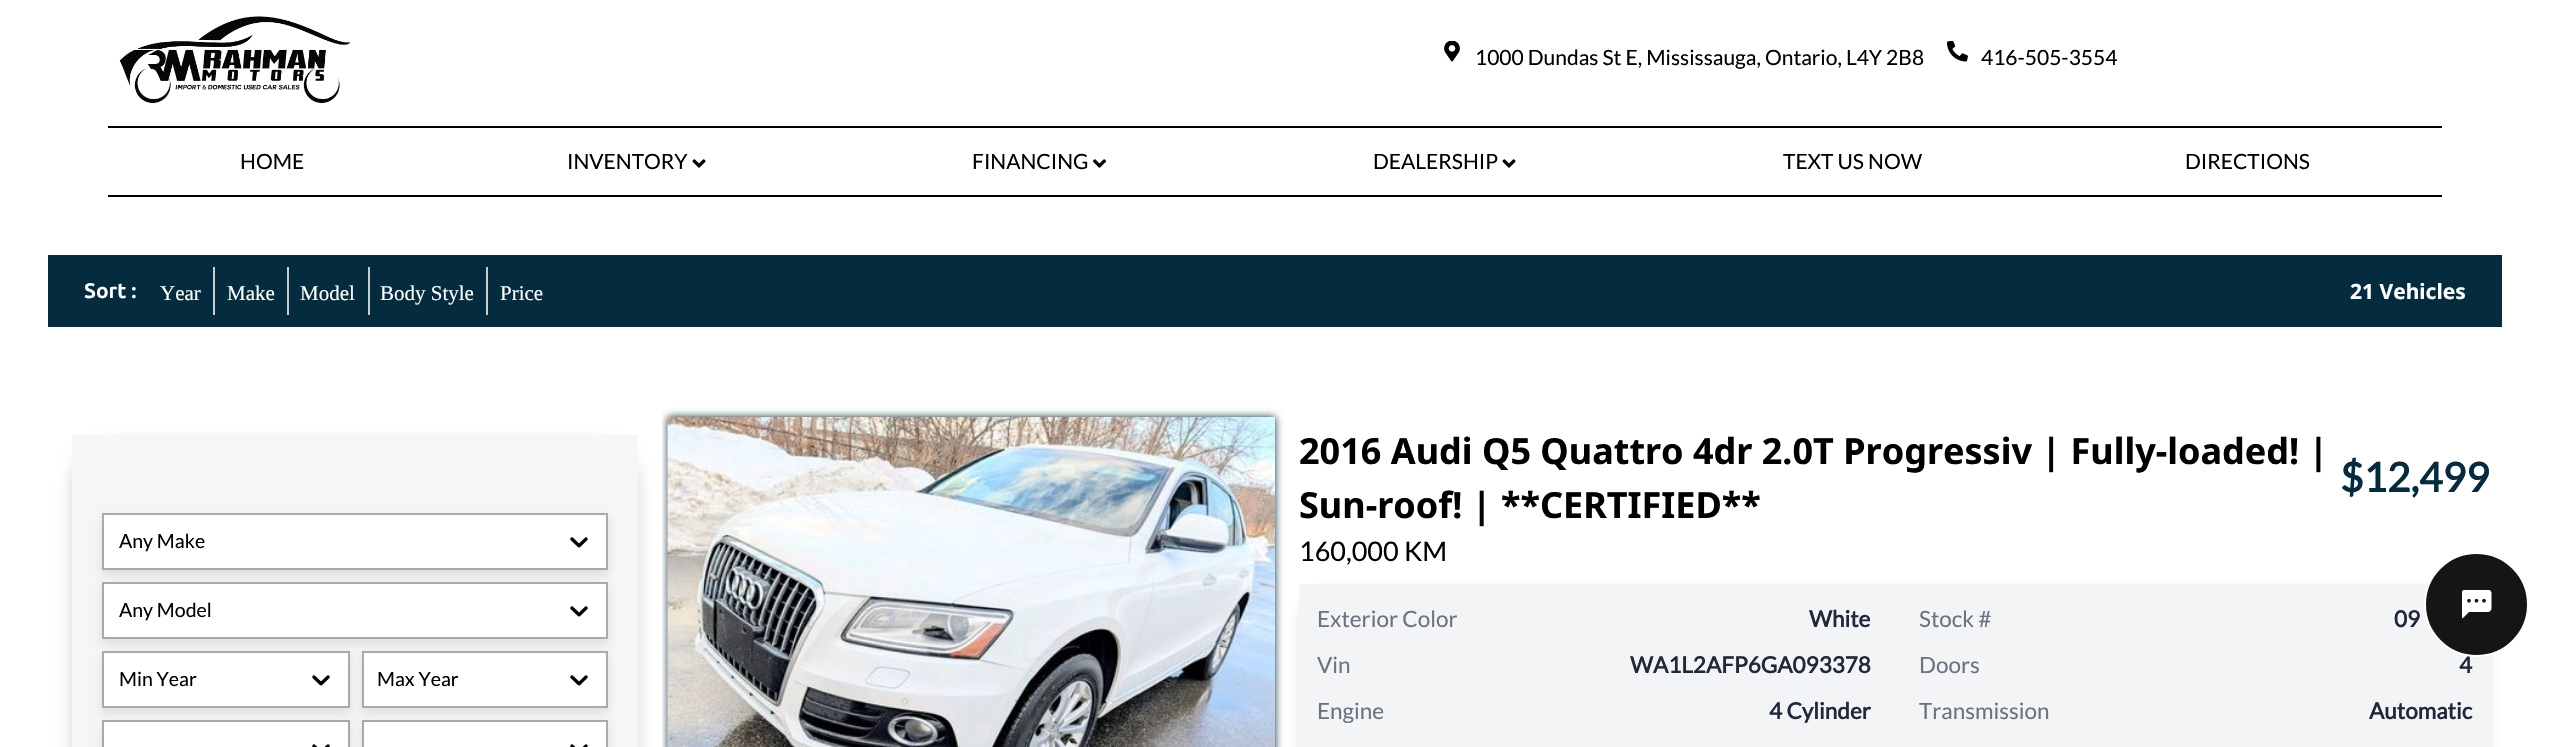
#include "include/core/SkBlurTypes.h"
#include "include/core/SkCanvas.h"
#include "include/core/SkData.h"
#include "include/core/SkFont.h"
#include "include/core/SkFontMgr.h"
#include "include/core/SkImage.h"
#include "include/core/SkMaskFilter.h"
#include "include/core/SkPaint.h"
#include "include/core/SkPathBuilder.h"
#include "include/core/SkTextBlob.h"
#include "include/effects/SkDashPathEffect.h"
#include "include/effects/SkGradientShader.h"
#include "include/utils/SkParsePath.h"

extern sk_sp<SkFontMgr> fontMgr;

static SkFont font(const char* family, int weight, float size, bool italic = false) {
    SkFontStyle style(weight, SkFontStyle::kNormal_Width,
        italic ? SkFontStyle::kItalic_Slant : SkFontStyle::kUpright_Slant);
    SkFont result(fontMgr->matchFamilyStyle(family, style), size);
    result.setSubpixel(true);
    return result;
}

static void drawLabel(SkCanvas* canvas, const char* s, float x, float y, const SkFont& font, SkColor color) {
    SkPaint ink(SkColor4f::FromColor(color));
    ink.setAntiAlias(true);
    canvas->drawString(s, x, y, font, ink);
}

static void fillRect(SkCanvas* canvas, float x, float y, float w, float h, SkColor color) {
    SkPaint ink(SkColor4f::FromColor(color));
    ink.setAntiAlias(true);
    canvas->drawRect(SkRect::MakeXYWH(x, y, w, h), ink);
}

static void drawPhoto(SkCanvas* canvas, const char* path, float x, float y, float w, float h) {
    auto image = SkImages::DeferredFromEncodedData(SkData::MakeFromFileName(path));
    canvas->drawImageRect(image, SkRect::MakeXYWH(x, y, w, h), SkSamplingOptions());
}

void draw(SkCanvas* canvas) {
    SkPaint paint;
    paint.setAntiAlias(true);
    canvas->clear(0xFFFFFFFF);
    drawPhoto(canvas, "assets/img1.png", 119, 16, 232, 88);
    drawPhoto(canvas, "assets/img2.png", 1444, 41, 16, 21);
    SkFont font1 = font("Lato", 400, 21);
    drawLabel(canvas, "1000 Dundas St E, Mississauga, Ontario, L4Y 2B8", 1475, 65, font1, 0xFF000000);
    drawPhoto(canvas, "assets/img3.png", 1947, 41, 21, 21);
    drawLabel(canvas, "416-505-3554", 1981, 65, font1, 0xFF000000);
    fillRect(canvas, 108, 126, 2334, 2, 0xFF000000);
    fillRect(canvas, 108, 195, 2334, 2, 0xFF000000);
    drawLabel(canvas, "HOME", 240, 169, font1, 0xFF000000);
    drawLabel(canvas, "INVENTORY", 567, 169, font1, 0xFF000000);
    drawPhoto(canvas, "assets/img4.png", 692, 159, 14, 9);
    drawLabel(canvas, "FINANCING", 972, 169, font1, 0xFF000000);
    drawPhoto(canvas, "assets/img5.png", 1093, 159, 13, 9);
    drawLabel(canvas, "DEALERSHIP", 1373, 169, font1, 0xFF000000);
    drawPhoto(canvas, "assets/img4.png", 1502, 159, 14, 9);
    drawLabel(canvas, "TEXT US NOW", 1783, 169, font1, 0xFF000000);
    drawLabel(canvas, "DIRECTIONS", 2185, 169, font1, 0xFF000000);
    fillRect(canvas, 48, 255, 2454, 72, 0xFF042B3E);
    SkFont font2 = font("Ubuntu", 700, 21);
    drawLabel(canvas, "Sort :", 84, 298, font2, 0xFFFFFFFF);
    fillRect(canvas, 213, 267, 2, 48, 0xFFCCCCCC);
    SkFont font3 = font("Liberation Serif", 400, 21);
    drawLabel(canvas, "Year", 160, 300, font3, 0xFFFFFFFF);
    fillRect(canvas, 287, 267, 2, 48, 0xFFCCCCCC);
    drawLabel(canvas, "Make", 227, 300, font3, 0xFFFFFFFF);
    fillRect(canvas, 368, 267, 2, 48, 0xFFCCCCCC);
    drawLabel(canvas, "Model", 300, 300, font3, 0xFFFFFFFF);
    fillRect(canvas, 486, 267, 2, 48, 0xFFCCCCCC);
    drawLabel(canvas, "Body Style", 380, 300, font3, 0xFFFFFFFF);
    drawLabel(canvas, "Price", 500, 300, font3, 0xFFFFFFFF);
    SkFont font4 = font("Noto Sans", 700, 21);
    drawLabel(canvas, "21 Vehicles", 2350, 299, font4, 0xFFFFFFFF);
    paint.setColor(0x29000000);
    paint.setMaskFilter(SkMaskFilter::MakeBlur(kNormal_SkBlurStyle, 7.5f));
    canvas->drawRoundRect(SkRect::MakeXYWH(72, 443, 566, 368), 41, 41, paint);
    paint.setMaskFilter(nullptr);
    fillRect(canvas, 72, 435, 566, 312, 0xFFF6F6F6);
    paint.setColor(0x1A000000);
    paint.setMaskFilter(SkMaskFilter::MakeBlur(kNormal_SkBlurStyle, 4.5f));
    canvas->drawRect(SkRect::MakeXYWH(102, 518, 506, 57), paint);
    paint.setMaskFilter(nullptr);
    paint.setColor(0xFFFFFFFF);
    canvas->drawRect(SkRect::MakeXYWH(103, 514, 504, 55), paint);
    paint.setStroke(true);
    paint.setStrokeWidth(2);
    paint.setColor(0xFFABAAAA);
    canvas->drawRect(SkRect::MakeXYWH(103, 514, 504, 55), paint);
    SkFont font5 = font("Lato", 400, 19.5f);
    drawLabel(canvas, "Any Make", 119, 548, font5, 0xFF000000);
    drawPhoto(canvas, "assets/img6.png", 570, 537, 18, 11);
    paint.setStroke(false);
    paint.setColor(0x1A000000);
    paint.setMaskFilter(SkMaskFilter::MakeBlur(kNormal_SkBlurStyle, 4.5f));
    canvas->drawRect(SkRect::MakeXYWH(102, 587, 506, 57), paint);
    paint.setMaskFilter(nullptr);
    paint.setColor(0xFFFFFFFF);
    canvas->drawRect(SkRect::MakeXYWH(103, 583, 504, 55), paint);
    paint.setStroke(true);
    paint.setColor(0xFFABAAAA);
    canvas->drawRect(SkRect::MakeXYWH(103, 583, 504, 55), paint);
    drawLabel(canvas, "Any Model", 119, 617, font5, 0xFF000000);
    drawPhoto(canvas, "assets/img6.png", 570, 606, 18, 11);
    paint.setStroke(false);
    paint.setColor(0x1A000000);
    paint.setMaskFilter(SkMaskFilter::MakeBlur(kNormal_SkBlurStyle, 4.5f));
    canvas->drawRect(SkRect::MakeXYWH(102, 656, 248, 57), paint);
    paint.setMaskFilter(nullptr);
    paint.setColor(0xFFFFFFFF);
    canvas->drawRect(SkRect::MakeXYWH(103, 652, 246, 55), paint);
    paint.setStroke(true);
    paint.setColor(0xFFABAAAA);
    canvas->drawRect(SkRect::MakeXYWH(103, 652, 246, 55), paint);
    drawLabel(canvas, "Min Year", 119, 686, font5, 0xFF000000);
    drawPhoto(canvas, "assets/img6.png", 312, 675, 18, 11);
    paint.setStroke(false);
    paint.setColor(0x1A000000);
    paint.setMaskFilter(SkMaskFilter::MakeBlur(kNormal_SkBlurStyle, 4.5f));
    canvas->drawRect(SkRect::MakeXYWH(362, 656, 246, 57), paint);
    paint.setMaskFilter(nullptr);
    paint.setColor(0xFFFFFFFF);
    canvas->drawRect(SkRect::MakeXYWH(363, 652, 244, 55), paint);
    paint.setStroke(true);
    paint.setColor(0xFFABAAAA);
    canvas->drawRect(SkRect::MakeXYWH(363, 652, 244, 55), paint);
    drawLabel(canvas, "Max Year", 377, 686, font5, 0xFF000000);
    drawPhoto(canvas, "assets/img6.png", 570, 675, 18, 11);
    paint.setStroke(false);
    paint.setColor(0x1A000000);
    paint.setMaskFilter(SkMaskFilter::MakeBlur(kNormal_SkBlurStyle, 4.5f));
    canvas->drawRect(SkRect::MakeXYWH(102, 725, 248, 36), paint);
    paint.setMaskFilter(nullptr);
    paint.setColor(0xFFFFFFFF);
    canvas->drawRect(SkRect::MakeXYWH(103, 721, 246, 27), paint);
    paint.setStroke(true);
    paint.setColor(0xFFABAAAA);
    canvas->drawRect(SkRect::MakeXYWH(103, 721, 246, 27), paint);
    drawPhoto(canvas, "assets/img7.png", 312, 744, 18, 3);
    paint.setStroke(false);
    paint.setColor(0x1A000000);
    paint.setMaskFilter(SkMaskFilter::MakeBlur(kNormal_SkBlurStyle, 4.5f));
    canvas->drawRect(SkRect::MakeXYWH(362, 725, 246, 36), paint);
    paint.setMaskFilter(nullptr);
    paint.setColor(0xFFFFFFFF);
    canvas->drawRect(SkRect::MakeXYWH(363, 721, 244, 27), paint);
    paint.setStroke(true);
    paint.setColor(0xFFABAAAA);
    canvas->drawRect(SkRect::MakeXYWH(363, 721, 244, 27), paint);
    drawPhoto(canvas, "assets/img7.png", 570, 744, 18, 3);
    canvas->save();
    canvas->clipRect(SkRect::MakeXYWH(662, 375, 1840, 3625));
    paint.setStroke(false);
    paint.setColor(0xFF042B3E);
    paint.setMaskFilter(SkMaskFilter::MakeBlur(kNormal_SkBlurStyle, 4));
    canvas->drawRect(SkRect::MakeXYWH(668, 417, 607, 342), paint);
    paint.setMaskFilter(nullptr);
    canvas->restore();
    drawPhoto(canvas, "assets/img8.png", 667, 417, 608, 330);
    SkFont font6 = font("Noto Sans", 700, 36);
    drawLabel(canvas, "2016 Audi Q5 Quattro 4dr 2.0T Progressiv | Fully-loaded! |", 1299, 464, font6, 0xFF000000);
    drawLabel(canvas, "Sun-roof! | **CERTIFIED**", 1299, 518, font6, 0xFF000000);
    SkFont font7 = font("Lato", 700, 40.5f);
    drawLabel(canvas, "$12,499", 2340, 492, font7, 0xFF042B3E);
    SkFont font8 = font("Lato", 400, 27);
    drawLabel(canvas, "160,000 KM", 1299, 561, font8, 0xFF000000);
    paint.setColor(0x1C000000);
    paint.setMaskFilter(SkMaskFilter::MakeBlur(kNormal_SkBlurStyle, 5));
    canvas->drawRoundRect(SkRect::MakeXYWH(1299, 588, 1191, 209), 35, 35, paint);
    paint.setMaskFilter(nullptr);
    fillRect(canvas, 1299, 584, 1191, 163, 0xFFF3F4F6);
    SkFont font9 = font("Lato", 400, 22.5f);
    drawLabel(canvas, "Exterior Color", 1317, 627, font9, 0xFF6B7280);
    SkFont font10 = font("Lato", 700, 22.5f);
    drawLabel(canvas, "White", 1809, 627, font10, 0xFF1E293B);
    drawLabel(canvas, "Vin", 1317, 673, font9, 0xFF6B7280);
    drawLabel(canvas, "WA1L2AFP6GA093378", 1630, 673, font10, 0xFF1E293B);
    drawLabel(canvas, "Engine", 1317, 719, font9, 0xFF6B7280);
    drawLabel(canvas, "4 Cylinder", 1769, 719, font10, 0xFF1E293B);
    drawLabel(canvas, "Stock #", 1919, 627, font9, 0xFF6B7280);
    drawLabel(canvas, "09", 2394, 627, font10, 0xFF1E293B);
    drawLabel(canvas, "Doors", 1919, 673, font9, 0xFF6B7280);
    drawLabel(canvas, "4", 2459, 673, font10, 0xFF1E293B);
    drawLabel(canvas, "Transmission", 1919, 719, font9, 0xFF6B7280);
    drawLabel(canvas, "Automatic", 2369, 719, font10, 0xFF1E293B);
    paint.setColor(0xFF151515);
    canvas->drawCircle(2476.5f, 604.5f, 51.5f, paint);
    paint.setStroke(true);
    paint.setColor(0xFFFFFFFF);
    canvas->drawCircle(2476.5f, 604.5f, 51.5f, paint);
    drawPhoto(canvas, "assets/img9.png", 2462, 590, 30, 29);
}
